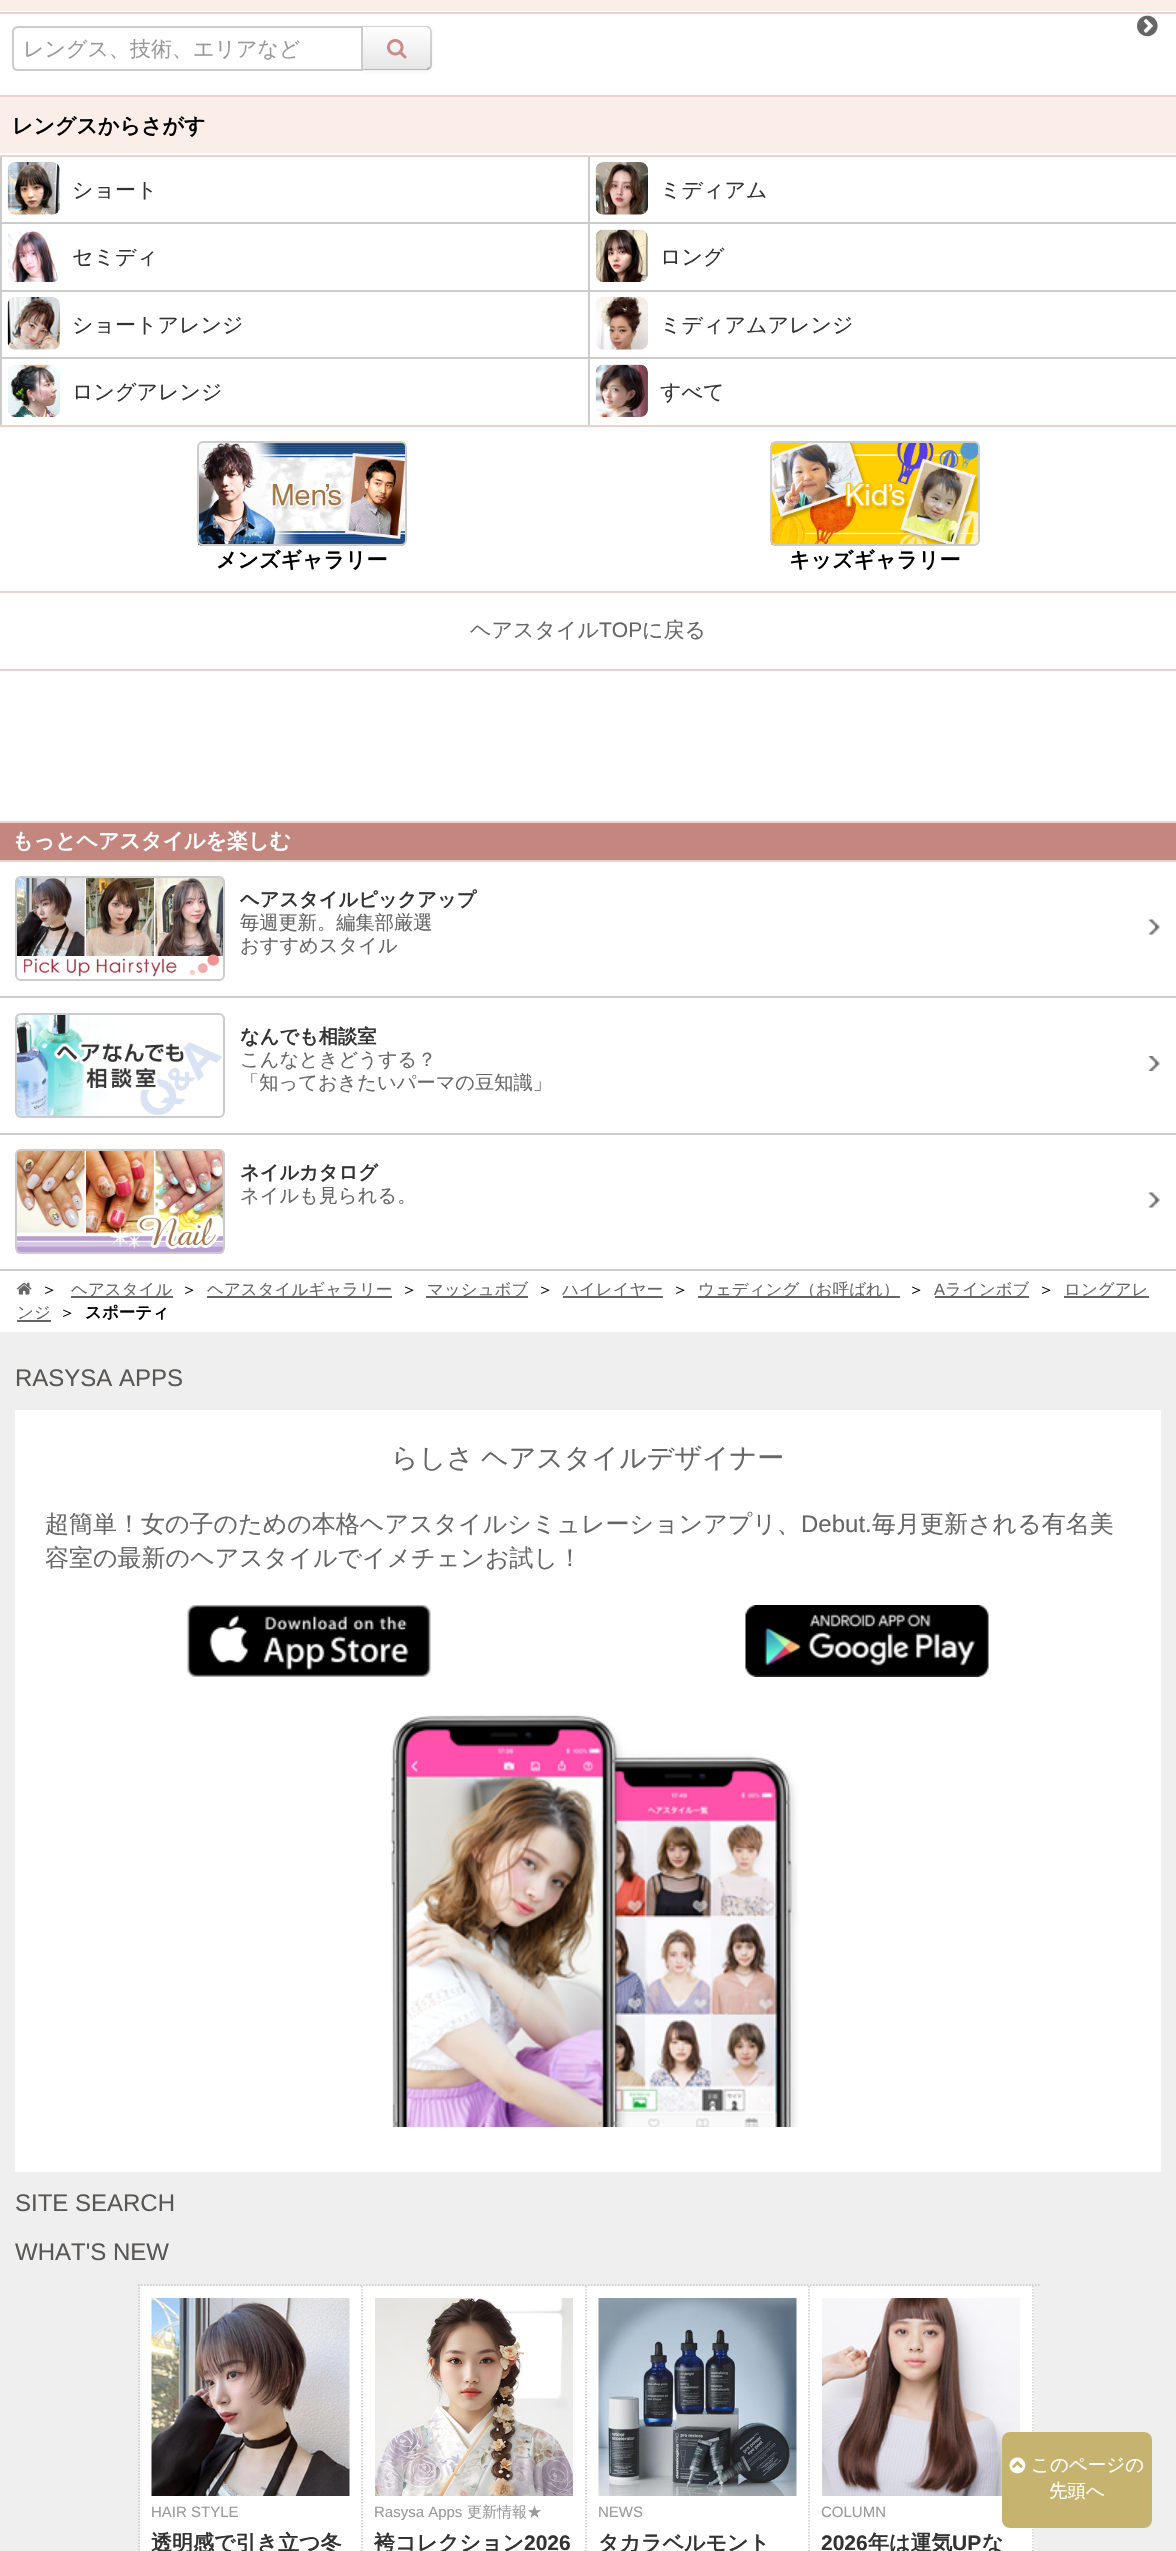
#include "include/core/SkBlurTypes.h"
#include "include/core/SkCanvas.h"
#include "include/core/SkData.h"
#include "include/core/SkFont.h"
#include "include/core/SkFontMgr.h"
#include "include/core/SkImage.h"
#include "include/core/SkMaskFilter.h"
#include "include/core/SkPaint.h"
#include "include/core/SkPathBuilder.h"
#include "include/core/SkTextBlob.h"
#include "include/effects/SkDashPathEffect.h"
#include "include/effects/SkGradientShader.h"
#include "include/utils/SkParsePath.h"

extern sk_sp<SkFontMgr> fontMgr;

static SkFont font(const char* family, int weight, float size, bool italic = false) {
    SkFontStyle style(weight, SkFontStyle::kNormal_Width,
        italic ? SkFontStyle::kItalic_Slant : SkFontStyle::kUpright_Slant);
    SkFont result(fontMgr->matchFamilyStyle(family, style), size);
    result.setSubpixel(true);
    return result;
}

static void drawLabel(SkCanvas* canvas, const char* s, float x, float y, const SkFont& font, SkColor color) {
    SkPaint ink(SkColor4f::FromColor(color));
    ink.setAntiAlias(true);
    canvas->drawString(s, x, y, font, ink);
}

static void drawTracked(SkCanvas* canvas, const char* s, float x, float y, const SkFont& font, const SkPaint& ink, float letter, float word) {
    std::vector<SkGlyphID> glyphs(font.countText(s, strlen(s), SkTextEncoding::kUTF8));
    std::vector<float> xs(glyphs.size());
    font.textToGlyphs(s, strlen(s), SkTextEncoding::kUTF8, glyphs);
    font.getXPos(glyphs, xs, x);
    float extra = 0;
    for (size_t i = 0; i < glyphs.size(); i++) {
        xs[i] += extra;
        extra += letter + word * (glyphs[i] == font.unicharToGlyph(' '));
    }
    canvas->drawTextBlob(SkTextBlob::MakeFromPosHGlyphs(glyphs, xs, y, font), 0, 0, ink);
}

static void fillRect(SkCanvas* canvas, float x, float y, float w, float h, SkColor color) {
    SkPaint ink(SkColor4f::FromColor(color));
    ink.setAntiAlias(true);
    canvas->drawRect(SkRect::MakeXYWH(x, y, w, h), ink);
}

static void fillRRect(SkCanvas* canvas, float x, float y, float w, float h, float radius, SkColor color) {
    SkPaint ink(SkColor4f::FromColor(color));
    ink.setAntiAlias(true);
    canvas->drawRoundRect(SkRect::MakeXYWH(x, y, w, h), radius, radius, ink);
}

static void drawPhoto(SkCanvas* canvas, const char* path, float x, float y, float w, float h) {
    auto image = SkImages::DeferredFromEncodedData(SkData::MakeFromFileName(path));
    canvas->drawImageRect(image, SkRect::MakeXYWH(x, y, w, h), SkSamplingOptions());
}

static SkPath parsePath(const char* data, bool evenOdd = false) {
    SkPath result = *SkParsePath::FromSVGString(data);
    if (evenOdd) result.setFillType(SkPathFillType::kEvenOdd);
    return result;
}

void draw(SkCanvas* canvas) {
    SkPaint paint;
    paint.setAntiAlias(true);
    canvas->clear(0xFFFFFFFF);
    fillRect(canvas, 0, 0, 1176, 11, 0xFFFBEEE9);
    fillRect(canvas, 0, 12, 1176, 2, 0xFFEAD3CF);
    drawPhoto(canvas, "assets/img1.png", 1137, 15, 21, 22);
    paint.setColor(0x0D000000);
    paint.setMaskFilter(SkMaskFilter::MakeBlur(kNormal_SkBlurStyle, 1.5f));
    canvas->drawRoundRect(SkRect::MakeXYWH(362, 27, 70, 45), 6, 6, paint);
    paint.setMaskFilter(nullptr);
    paint.setColor(0xFFF5F5F5);
    canvas->drawPath(parsePath("M362 26H426C429.5 26 432 28.5 432 32V65C432 68.5 429.5 71 426 71H362Z"), paint);
    canvas->save();
    canvas->clipPath(parsePath("M362 26H426C429.5 26 432 28.5 432 32V65C432 68.5 429.5 71 426 71H362Z"), true);
    {
        const SkColor colors[] = {0xFFFFFFFF, 0xFFE6E6E6};
        const float stops[] = {0, 1};
        const SkPoint ends[] = {{397, 27}, {397, 69}};
        paint.setShader(SkGradientShader::MakeLinear(ends, colors, stops, 2, SkTileMode::kClamp));
        paint.setAlpha(255);
    }
    canvas->drawRect(SkRect::MakeXYWH(363, 27, 69, 42), paint);
    canvas->restore();
    paint.setShader(nullptr);
    paint.setColor(0x33FFFFFF);
    canvas->drawPath(parsePath("M363 28H416C420 28 429 26 430 32V67C431 66 431 65 431 64V32C431 29 429 27 426 27H363Z"), paint);
    paint.setColor(0x26000000);
    canvas->drawPath(parsePath("M362 26L363 27H426L429 29L430 27C429 26 427 26 426 26Z"), paint);
    canvas->drawPath(parsePath("M430 27C431 28 432 30 432 32V64C432 66 431 68 430 69L429 67C430 67 430 65 430 64V32C430 31 430 29 429 29Z"), paint);
    paint.setColor(0x40000000);
    canvas->drawPath(parsePath("M430 69C429 70 427 70 426 70H362L363 69H426L429 67Z"), paint);
    paint.setColor(0xFFFFFFFF);
    canvas->drawPath(parsePath("M18 26H363V71H18C14.5 71 12 68.5 12 65V32C12 28.5 14.5 26 18 26Z"), paint);
    paint.setColor(0xFFECECEC);
    canvas->drawPath(parsePath("M18 28H362V27H19C16 27 14 29 14 32V33C14 31 16 28 18 28Z"), paint);
    paint.setStroke(true);
    paint.setStrokeWidth(2);
    paint.setColor(0xFFCCCCCC);
    canvas->drawPath(parsePath("M18 27H362V70H18C15 70 13 68 13 65V32C13 29 15 27 18 27Z"), paint);
    SkFont font1 = font("WenQuanYi Zen Hei", 500, 21);
    drawLabel(canvas, "レングス、技術、エリアなど", 23, 56, font1, 0xFF999999);
    drawPhoto(canvas, "assets/img2.png", 387, 39, 20, 20);
    fillRect(canvas, 0, 97, 1176, 56, 0xFFFBEEE9);
    fillRect(canvas, 0, 95, 1176, 2, 0xFFEAD3CF);
    fillRect(canvas, 0, 222, 1176, 2, 0xFFCCCCCC);
    fillRect(canvas, 0, 156, 2, 68, 0xFFCCCCCC);
    fillRect(canvas, 588, 156, 2, 68, 0xFFCCCCCC);
    fillRect(canvas, 0, 155, 1176, 2, 0xFFEAD3CF);
    SkFont font2 = font("WenQuanYi Zen Hei", 700, 21);
    drawLabel(canvas, "レングスからさがす", 12, 133, font2, 0xFF000000);
    fillRect(canvas, 0, 425, 1176, 2, 0xFFEAD3CF);
    drawPhoto(canvas, "assets/img3.png", 7, 162, 53, 53);
    drawLabel(canvas, "ショート", 72, 197, font1, 0xFF333333);
    drawPhoto(canvas, "assets/img4.png", 595, 162, 53, 53);
    drawLabel(canvas, "ミディアム", 660, 197, font1, 0xFF333333);
    fillRect(canvas, 0, 290, 1176, 2, 0xFFCCCCCC);
    fillRect(canvas, 0, 224, 2, 67, 0xFFCCCCCC);
    drawPhoto(canvas, "assets/img5.png", 7, 230, 53, 52);
    drawLabel(canvas, "セミディ", 72, 264, font1, 0xFF333333);
    fillRect(canvas, 588, 224, 2, 67, 0xFFCCCCCC);
    drawPhoto(canvas, "assets/img6.png", 595, 229, 53, 53);
    drawLabel(canvas, "ロング", 660, 264, font1, 0xFF333333);
    fillRect(canvas, 0, 357, 1176, 2, 0xFFCCCCCC);
    fillRect(canvas, 0, 291, 2, 134, 0xFFCCCCCC);
    drawPhoto(canvas, "assets/img7.png", 7, 297, 53, 53);
    drawLabel(canvas, "ショートアレンジ", 72, 332, font1, 0xFF333333);
    fillRect(canvas, 588, 291, 2, 134, 0xFFCCCCCC);
    drawPhoto(canvas, "assets/img8.png", 596, 297, 52, 53);
    drawLabel(canvas, "ミディアムアレンジ", 660, 332, font1, 0xFF333333);
    drawPhoto(canvas, "assets/img9.png", 8, 364, 52, 53);
    drawLabel(canvas, "ロングアレンジ", 72, 399, font1, 0xFF333333);
    drawPhoto(canvas, "assets/img10.png", 595, 364, 53, 53);
    drawLabel(canvas, "すべて", 660, 399, font1, 0xFF333333);
    drawPhoto(canvas, "assets/img11.png", 198, 442, 207, 104);
    canvas->drawRoundRect(SkRect::MakeXYWH(198, 442, 208, 103), 5, 5, paint);
    drawLabel(canvas, "メンズギャラリー", 216, 567, font2, 0xFF000000);
    drawPhoto(canvas, "assets/img12.png", 771, 442, 207, 104);
    canvas->drawRoundRect(SkRect::MakeXYWH(771, 442, 208, 103), 5, 5, paint);
    drawLabel(canvas, "キッズギャラリー", 789, 567, font2, 0xFF000000);
    fillRect(canvas, 0, 591, 1176, 2, 0xFFEAD3CF);
    fillRect(canvas, 0, 669, 1176, 2, 0xFFEAD3CF);
    drawLabel(canvas, "ヘアスタイル", 470, 637, font1, 0xFF666666);
    SkFont font3 = font("Liberation Sans", 400, 21);
    drawLabel(canvas, "TOP", 599, 637, font3, 0xFF666666);
    drawLabel(canvas, "に戻る", 642, 637, font1, 0xFF666666);
    fillRect(canvas, 0, 823, 1176, 37, 0xFFC4877F);
    fillRect(canvas, 0, 821, 1176, 2, 0xFFEAD3CF);
    fillRect(canvas, 0, 860, 1176, 2, 0xFFEAD3CF);
    drawLabel(canvas, "もっとヘアスタイルを楽しむ", 12, 848, font2, 0xFFFFFFFF);
    fillRect(canvas, 0, 1269, 1176, 2, 0xFFCCCCCC);
    fillRect(canvas, 0, 996, 1176, 2, 0xFFCCCCCC);
    drawPhoto(canvas, "assets/img13.png", 16, 877, 208, 100);
    canvas->drawRoundRect(SkRect::MakeXYWH(16, 877, 208, 103), 5, 5, paint);
    SkFont font4 = font("WenQuanYi Zen Hei", 700, 19.25f);
    drawLabel(canvas, "ヘアスタイルピックアップ", 240, 906, font4, 0xFF333333);
    SkFont font5 = font("WenQuanYi Zen Hei", 500, 19.25f);
    drawLabel(canvas, "毎週更新。編集部厳選", 240, 929, font5, 0xFF666666);
    drawLabel(canvas, "おすすめスタイル", 240, 952, font5, 0xFF666666);
    drawPhoto(canvas, "assets/img14.png", 1148, 919, 12, 16);
    fillRect(canvas, 0, 1133, 1176, 2, 0xFFCCCCCC);
    drawPhoto(canvas, "assets/img15.png", 16, 1014, 207, 104);
    canvas->drawRoundRect(SkRect::MakeXYWH(16, 1014, 208, 103), 5, 5, paint);
    drawLabel(canvas, "なんでも相談室", 240, 1043, font4, 0xFF333333);
    drawLabel(canvas, "こんなときどうする？", 240, 1066, font5, 0xFF666666);
    drawLabel(canvas, "「知っておきたいパーマの豆知識」", 240, 1089, font5, 0xFF666666);
    drawPhoto(canvas, "assets/img16.png", 1148, 1056, 12, 15);
    drawPhoto(canvas, "assets/img17.png", 16, 1150, 208, 104);
    canvas->drawRoundRect(SkRect::MakeXYWH(16, 1150, 208, 103), 5, 5, paint);
    drawLabel(canvas, "ネイルカタログ", 240, 1179, font4, 0xFF333333);
    drawLabel(canvas, "ネイルも見られる。", 240, 1202, font5, 0xFF666666);
    drawPhoto(canvas, "assets/img14.png", 1148, 1192, 12, 16);
    drawPhoto(canvas, "assets/img18.png", 16, 1282, 16, 13);
    SkFont font6 = font("WenQuanYi Zen Hei", 500, 16.5f);
    drawLabel(canvas, "＞", 41, 1295, font6, 0xFF000000);
    fillRect(canvas, 71, 1296, 102, 2, 0xFF666666);
    drawLabel(canvas, "ヘアスタイル", 71, 1295, font6, 0xFF666666);
    drawLabel(canvas, "＞", 181, 1295, font6, 0xFF000000);
    fillRect(canvas, 207, 1296, 185, 2, 0xFF666666);
    drawLabel(canvas, "ヘアスタイルギャラリー", 207, 1295, font6, 0xFF666666);
    drawLabel(canvas, "＞", 401, 1295, font6, 0xFF000000);
    fillRect(canvas, 426, 1296, 102, 2, 0xFF666666);
    drawLabel(canvas, "マッシュボブ", 427, 1295, font6, 0xFF666666);
    drawLabel(canvas, "＞", 537, 1295, font6, 0xFF000000);
    fillRect(canvas, 563, 1296, 100, 2, 0xFF666666);
    drawLabel(canvas, "ハイレイヤー", 562, 1295, font6, 0xFF666666);
    drawLabel(canvas, "＞", 672, 1295, font6, 0xFF000000);
    fillRect(canvas, 698, 1296, 202, 2, 0xFF666666);
    drawLabel(canvas, "ウェディング（お呼ばれ）", 698, 1295, font6, 0xFF666666);
    drawLabel(canvas, "＞", 908, 1295, font6, 0xFF000000);
    SkFont font7 = font("Liberation Sans", 400, 16.5f);
    drawLabel(canvas, "A", 934, 1295, font7, 0xFF666666);
    fillRect(canvas, 935, 1296, 94, 2, 0xFF666666);
    drawLabel(canvas, "ラインボブ", 945, 1295, font6, 0xFF666666);
    drawLabel(canvas, "＞", 1038, 1295, font6, 0xFF000000);
    fillRect(canvas, 1064, 1296, 85, 2, 0xFF666666);
    drawLabel(canvas, "ロングアレ", 1064, 1295, font6, 0xFF666666);
    drawLabel(canvas, "ンジ", 17, 1318, font6, 0xFF666666);
    fillRect(canvas, 17, 1320, 34, 2, 0xFF666666);
    drawLabel(canvas, "＞", 59, 1318, font6, 0xFF000000);
    SkFont font8 = font("WenQuanYi Zen Hei", 700, 16.5f);
    drawLabel(canvas, "スポーティ", 85, 1318, font8, 0xFF000000);
    fillRect(canvas, 0, 1332, 1176, 1219, 0xFFEFEFEF);
    SkFont font9 = font("Liberation Sans", 400, 24);
    drawLabel(canvas, "RASYSA APPS", 15, 1386, font9, 0xFF585755);
    fillRect(canvas, 15, 1410, 1146, 762, 0xFFFFFFFF);
    SkFont font10 = font("WenQuanYi Zen Hei", 500, 27);
    paint.setStroke(false);
    paint.setColor(0xFF666666);
    drawTracked(canvas, "らしさ ヘアスタイルデザイナー", 391, 1467, font10, paint, 0, -1);
    SkFont font11 = font("WenQuanYi Zen Hei", 500, 24);
    drawLabel(canvas, "超簡単！女の子のための本格ヘアスタイルシミュレーションアプリ、", 45, 1532, font11, 0xFF666666);
    drawLabel(canvas, "Debut.", 801, 1532, font9, 0xFF666666);
    drawLabel(canvas, "毎月更新される有名美", 872, 1532, font11, 0xFF666666);
    drawLabel(canvas, "容室の最新のヘアスタイルでイメチェンお試し！", 45, 1566, font11, 0xFF666666);
    drawPhoto(canvas, "assets/img19.png", 187, 1605, 244, 72);
    drawPhoto(canvas, "assets/img20.png", 745, 1605, 244, 72);
    drawPhoto(canvas, "assets/img21.png", 391, 1715, 407, 412);
    drawLabel(canvas, "SITE SEARCH", 15, 2211, font9, 0xFF585755);
    drawLabel(canvas, "WHAT'S NEW", 15, 2260, font9, 0xFF585755);
    paint.setStroke(true);
    paint.setStrokeWidth(1.5f);
    paint.setColor(0xFFCCCCCC);
    paint.setPathEffect(SkDashPathEffect::Make({{1.5f, 1.5f}}, 0));
    canvas->drawPath(parsePath("M138 2285H1039.5"), paint);
    paint.setPathEffect(nullptr);
    paint.setPathEffect(SkDashPathEffect::Make({{1.5f, 1.5f}}, 0));
    canvas->drawPath(parsePath("M139 2284.5V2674.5"), paint);
    paint.setPathEffect(nullptr);
    fillRect(canvas, 140, 2286, 894, 265, 0xFFFFFFFF);
    paint.setPathEffect(SkDashPathEffect::Make({{1.5f, 1.5f}}, 0));
    canvas->drawPath(parsePath("M362 2286V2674.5"), paint);
    paint.setPathEffect(nullptr);
    drawPhoto(canvas, "assets/img22.png", 151, 2298, 199, 198);
    SkFont font12 = font("Liberation Sans", 400, 15);
    drawLabel(canvas, "HAIR STYLE", 151, 2517, font12, 0xFF999999);
    drawLabel(canvas, "透明感で引き立つ冬", 151, 2550, font2, 0xFF333333);
    paint.setPathEffect(SkDashPathEffect::Make({{1.5f, 1.5f}}, 0));
    canvas->drawPath(parsePath("M586 2286V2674.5"), paint);
    paint.setPathEffect(nullptr);
    drawPhoto(canvas, "assets/img23.png", 375, 2298, 198, 198);
    drawLabel(canvas, "Rasysa Apps", 374, 2517, font12, 0xFF999999);
    SkFont font13 = font("WenQuanYi Zen Hei", 500, 15);
    drawLabel(canvas, "更新情報★", 467, 2517, font13, 0xFF999999);
    drawLabel(canvas, "袴コレクション", 374, 2550, font2, 0xFF333333);
    SkFont font14 = font("Liberation Sans", 700, 21);
    drawLabel(canvas, "2026", 524, 2550, font14, 0xFF333333);
    paint.setPathEffect(SkDashPathEffect::Make({{1.5f, 1.5f}}, 0));
    canvas->drawPath(parsePath("M809 2286V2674.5"), paint);
    paint.setPathEffect(nullptr);
    drawPhoto(canvas, "assets/img24.png", 598, 2298, 199, 198);
    drawLabel(canvas, "NEWS", 598, 2517, font12, 0xFF999999);
    drawLabel(canvas, "タカラベルモント", 598, 2550, font2, 0xFF333333);
    paint.setPathEffect(SkDashPathEffect::Make({{1.5f, 1.5f}}, 0));
    canvas->drawPath(parsePath("M1033 2286V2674.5"), paint);
    paint.setPathEffect(nullptr);
    drawPhoto(canvas, "assets/img25.png", 822, 2298, 198, 198);
    drawLabel(canvas, "COLUMN", 821, 2517, font12, 0xFF999999);
    drawLabel(canvas, "2026", 821, 2550, font14, 0xFF333333);
    drawLabel(canvas, "年は運気", 868, 2550, font2, 0xFF333333);
    drawLabel(canvas, "UP", 952, 2550, font14, 0xFF333333);
    drawLabel(canvas, "な", 982, 2550, font2, 0xFF333333);
    fillRRect(canvas, 1002, 2432, 150, 96, 8, 0xFFC7B370);
    drawPhoto(canvas, "assets/img26.png", 1009, 2457, 17, 17);
    SkFont font15 = font("WenQuanYi Zen Hei", 500, 18.5f);
    drawLabel(canvas, "このページの", 1031, 2471, font15, 0xFFFFFFFF);
    drawLabel(canvas, "先頭へ", 1049, 2497, font15, 0xFFFFFFFF);
}
